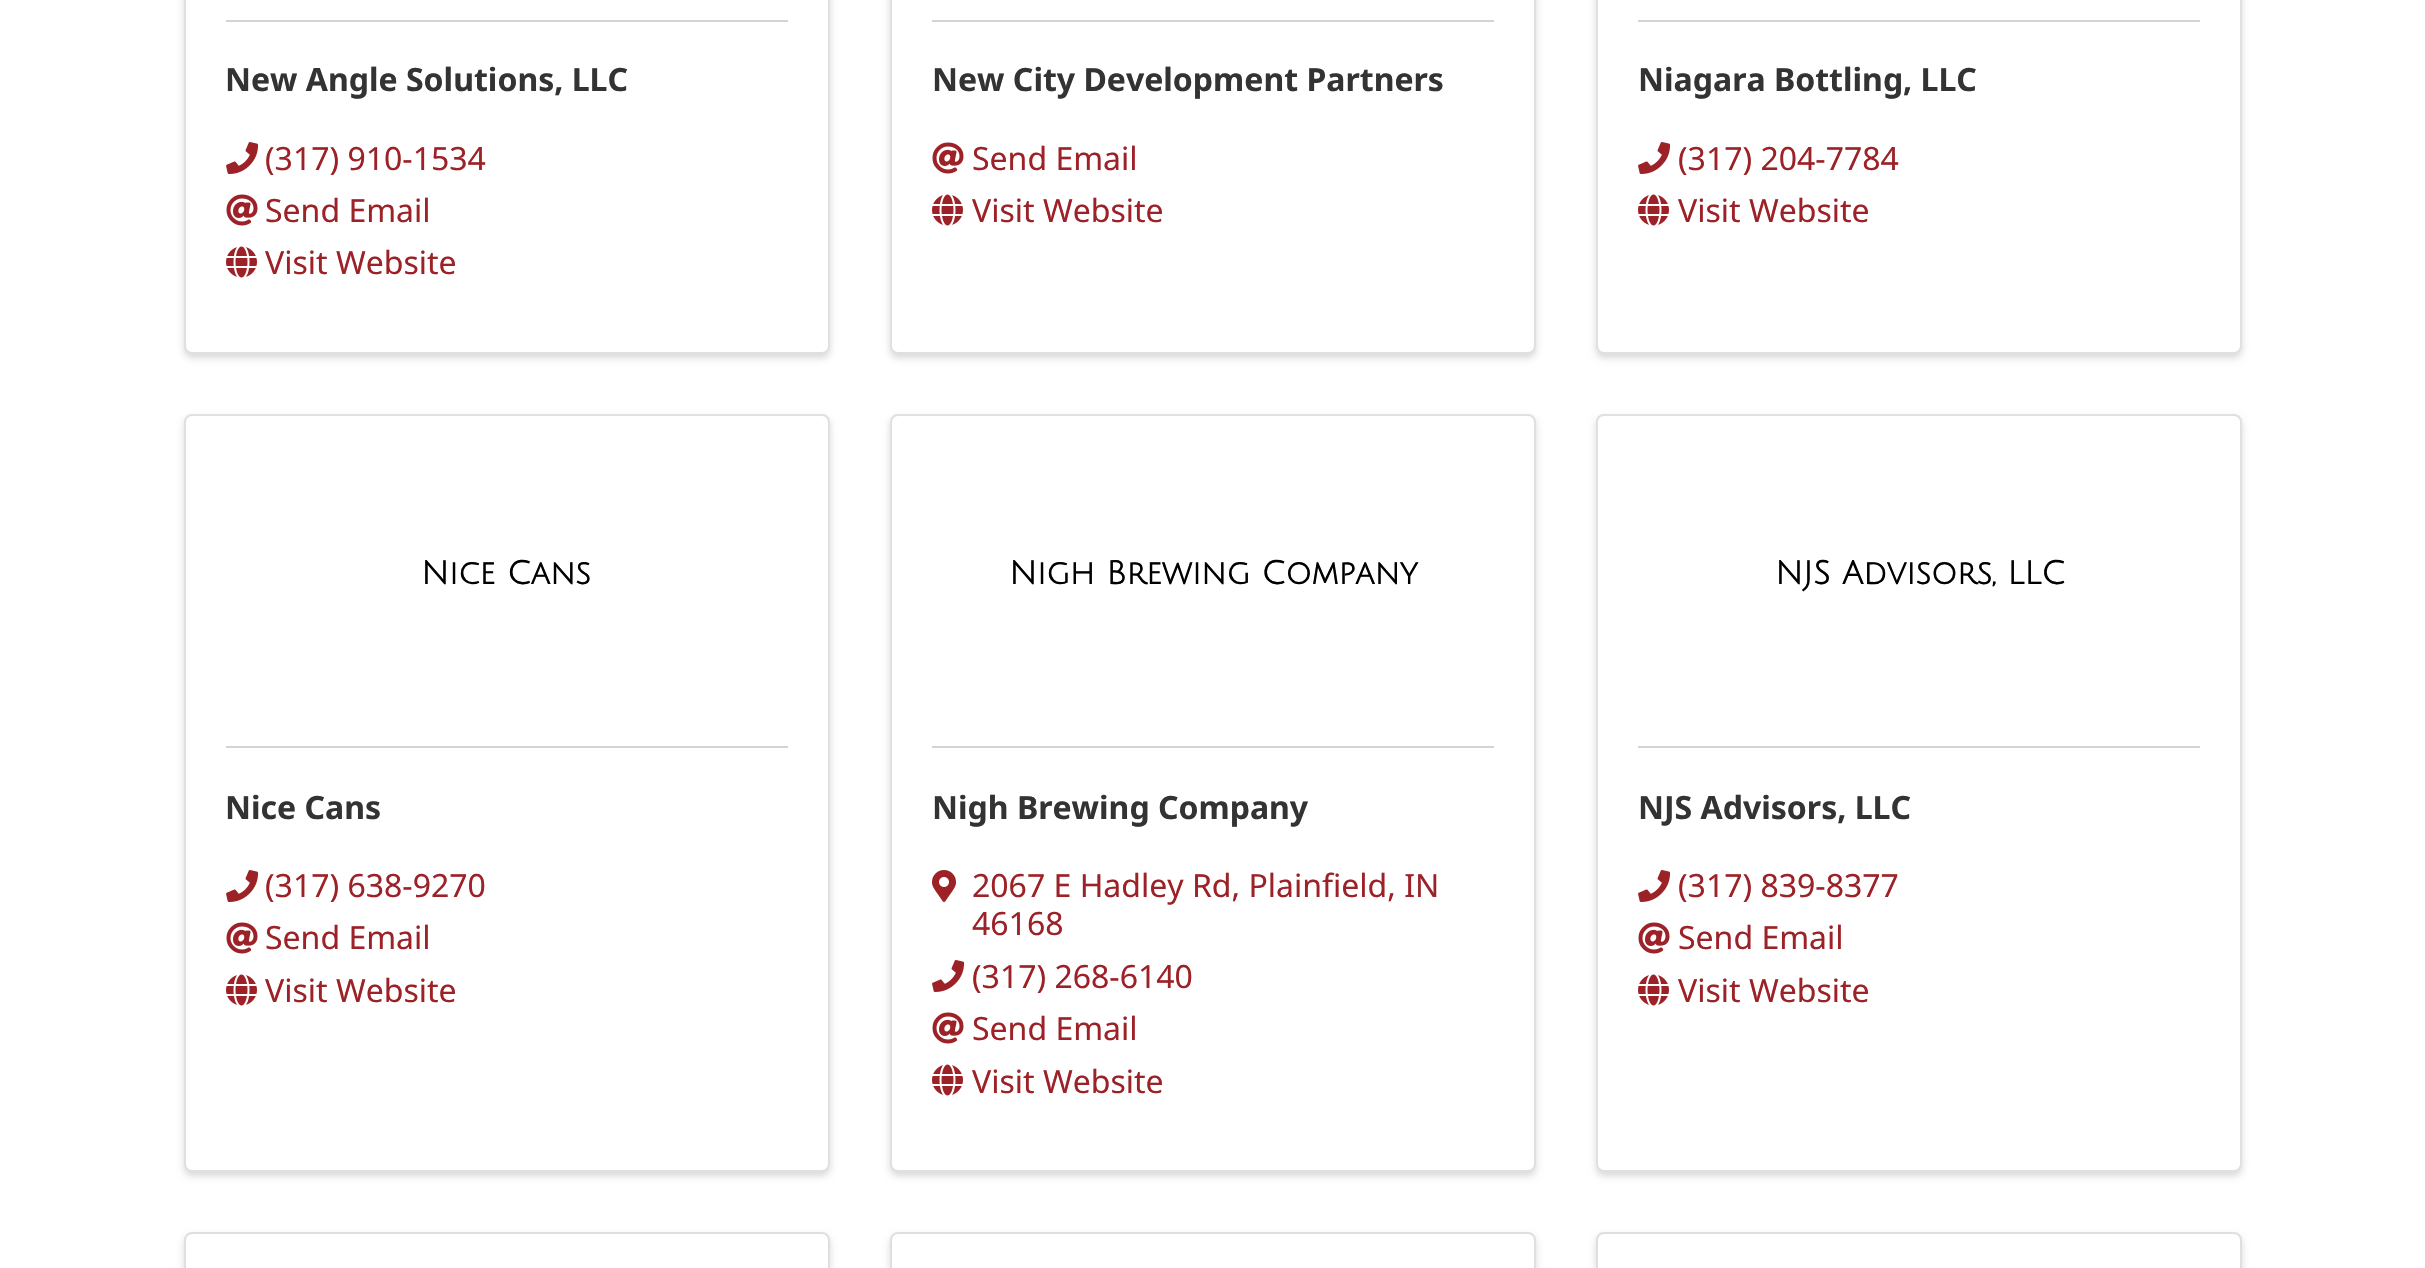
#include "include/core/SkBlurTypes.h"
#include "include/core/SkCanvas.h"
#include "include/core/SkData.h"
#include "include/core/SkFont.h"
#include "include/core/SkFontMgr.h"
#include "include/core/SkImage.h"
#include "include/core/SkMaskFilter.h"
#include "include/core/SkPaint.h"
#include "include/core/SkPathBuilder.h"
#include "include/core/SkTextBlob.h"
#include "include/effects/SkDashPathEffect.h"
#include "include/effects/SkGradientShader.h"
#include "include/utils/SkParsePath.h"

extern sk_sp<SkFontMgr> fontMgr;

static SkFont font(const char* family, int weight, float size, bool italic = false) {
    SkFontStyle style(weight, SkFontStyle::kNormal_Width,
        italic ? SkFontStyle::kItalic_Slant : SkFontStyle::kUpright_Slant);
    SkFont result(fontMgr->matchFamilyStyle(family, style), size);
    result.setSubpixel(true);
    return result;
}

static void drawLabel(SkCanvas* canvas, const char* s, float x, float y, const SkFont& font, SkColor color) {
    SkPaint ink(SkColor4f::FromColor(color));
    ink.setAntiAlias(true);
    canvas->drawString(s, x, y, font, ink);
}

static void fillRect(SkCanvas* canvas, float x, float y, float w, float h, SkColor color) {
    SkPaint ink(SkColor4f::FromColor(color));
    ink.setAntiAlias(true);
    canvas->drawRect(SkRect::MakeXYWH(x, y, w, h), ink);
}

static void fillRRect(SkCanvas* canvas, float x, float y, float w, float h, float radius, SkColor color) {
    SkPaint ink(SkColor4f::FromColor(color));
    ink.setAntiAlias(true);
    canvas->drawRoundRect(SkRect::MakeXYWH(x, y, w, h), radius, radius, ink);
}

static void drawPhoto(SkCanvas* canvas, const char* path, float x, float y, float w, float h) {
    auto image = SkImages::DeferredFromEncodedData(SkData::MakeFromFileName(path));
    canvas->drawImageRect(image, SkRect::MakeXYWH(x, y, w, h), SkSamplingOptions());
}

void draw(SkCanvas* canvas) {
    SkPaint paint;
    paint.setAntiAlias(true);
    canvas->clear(0xFFFFFFFF);
    paint.setColor(0x26000000);
    paint.setMaskFilter(SkMaskFilter::MakeBlur(kNormal_SkBlurStyle, 3.5f));
    canvas->drawRoundRect(SkRect::MakeXYWH(184, -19, 646, 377), 8, 8, paint);
    paint.setMaskFilter(nullptr);
    fillRRect(canvas, 184, -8, 646, 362, 8, 0xFFFFFFFF);
    paint.setStroke(true);
    paint.setStrokeWidth(2);
    paint.setColor(0x1F000000);
    canvas->drawRoundRect(SkRect::MakeXYWH(185, -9, 644, 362), 7, 7, paint);
    fillRect(canvas, 226, 20, 562, 2, 0xFFD4D4D4);
    SkFont font1 = font("Noto Sans", 700, 32);
    drawLabel(canvas, "New Angle Solutions, LLC", 225, 91, font1, 0xFF333333);
    drawPhoto(canvas, "assets/img1.png", 226, 142, 33, 32);
    SkFont font2 = font("Noto Sans", 400, 32);
    drawLabel(canvas, "(317) 910-1534", 265, 170, font2, 0xFF9C2228);
    drawPhoto(canvas, "assets/img2.png", 226, 194, 32, 32);
    drawLabel(canvas, "Send Email", 265, 222, font2, 0xFF9C2228);
    drawPhoto(canvas, "assets/img3.png", 226, 246, 31, 32);
    drawLabel(canvas, "Visit Website", 265, 274, font2, 0xFF9C2228);
    paint.setStroke(false);
    paint.setColor(0x26000000);
    paint.setMaskFilter(SkMaskFilter::MakeBlur(kNormal_SkBlurStyle, 3.5f));
    canvas->drawRoundRect(SkRect::MakeXYWH(890, -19, 646, 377), 8, 8, paint);
    paint.setMaskFilter(nullptr);
    fillRRect(canvas, 890, -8, 646, 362, 8, 0xFFFFFFFF);
    paint.setStroke(true);
    paint.setColor(0x1F000000);
    canvas->drawRoundRect(SkRect::MakeXYWH(891, -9, 644, 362), 7, 7, paint);
    fillRect(canvas, 932, 20, 562, 2, 0xFFD4D4D4);
    drawLabel(canvas, "New City Development Partners", 932, 91, font1, 0xFF333333);
    drawPhoto(canvas, "assets/img2.png", 932, 142, 32, 32);
    drawLabel(canvas, "Send Email", 972, 170, font2, 0xFF9C2228);
    drawPhoto(canvas, "assets/img3.png", 932, 194, 31, 32);
    drawLabel(canvas, "Visit Website", 972, 222, font2, 0xFF9C2228);
    paint.setStroke(false);
    paint.setColor(0x26000000);
    paint.setMaskFilter(SkMaskFilter::MakeBlur(kNormal_SkBlurStyle, 3.5f));
    canvas->drawRoundRect(SkRect::MakeXYWH(1596, -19, 646, 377), 8, 8, paint);
    paint.setMaskFilter(nullptr);
    fillRRect(canvas, 1596, -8, 646, 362, 8, 0xFFFFFFFF);
    paint.setStroke(true);
    paint.setColor(0x1F000000);
    canvas->drawRoundRect(SkRect::MakeXYWH(1597, -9, 644, 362), 7, 7, paint);
    fillRect(canvas, 1638, 20, 562, 2, 0xFFD4D4D4);
    drawLabel(canvas, "Niagara Bottling, LLC", 1638, 91, font1, 0xFF333333);
    drawPhoto(canvas, "assets/img1.png", 1638, 142, 33, 32);
    drawLabel(canvas, "(317) 204-7784", 1678, 170, font2, 0xFF9C2228);
    drawPhoto(canvas, "assets/img3.png", 1638, 194, 31, 32);
    drawLabel(canvas, "Visit Website", 1678, 222, font2, 0xFF9C2228);
    paint.setStroke(false);
    paint.setColor(0x26000000);
    paint.setMaskFilter(SkMaskFilter::MakeBlur(kNormal_SkBlurStyle, 3.5f));
    canvas->drawRoundRect(SkRect::MakeXYWH(184, 418, 646, 758), 8, 8, paint);
    paint.setMaskFilter(nullptr);
    fillRRect(canvas, 184, 414, 646, 758, 8, 0xFFFFFFFF);
    paint.setStroke(true);
    paint.setColor(0x1F000000);
    canvas->drawRoundRect(SkRect::MakeXYWH(185, 415, 644, 756), 7, 7, paint);
    SkFont font3 = font("Julius Sans One", 700, 32);
    drawLabel(canvas, "Nice Cans", 421, 584, font3, 0xFF000000);
    fillRect(canvas, 226, 746, 562, 2, 0xFFD4D4D4);
    drawLabel(canvas, "Nice Cans", 225, 819, font1, 0xFF333333);
    drawPhoto(canvas, "assets/img1.png", 226, 870, 33, 32);
    drawLabel(canvas, "(317) 638-9270", 265, 897, font2, 0xFF9C2228);
    drawPhoto(canvas, "assets/img2.png", 226, 922, 32, 32);
    drawLabel(canvas, "Send Email", 265, 949, font2, 0xFF9C2228);
    drawPhoto(canvas, "assets/img3.png", 226, 974, 31, 32);
    drawLabel(canvas, "Visit Website", 265, 1002, font2, 0xFF9C2228);
    paint.setStroke(false);
    paint.setColor(0x26000000);
    paint.setMaskFilter(SkMaskFilter::MakeBlur(kNormal_SkBlurStyle, 3.5f));
    canvas->drawRoundRect(SkRect::MakeXYWH(890, 418, 646, 758), 8, 8, paint);
    paint.setMaskFilter(nullptr);
    fillRRect(canvas, 890, 414, 646, 758, 8, 0xFFFFFFFF);
    paint.setStroke(true);
    paint.setColor(0x1F000000);
    canvas->drawRoundRect(SkRect::MakeXYWH(891, 415, 644, 756), 7, 7, paint);
    drawLabel(canvas, "Nigh Brewing Company", 1009, 584, font3, 0xFF000000);
    fillRect(canvas, 932, 746, 562, 2, 0xFFD4D4D4);
    drawLabel(canvas, "Nigh Brewing Company", 932, 819, font1, 0xFF333333);
    drawPhoto(canvas, "assets/img4.png", 932, 870, 24, 32);
    drawLabel(canvas, "2067 E Hadley Rd, Plainfield, IN", 972, 897, font2, 0xFF9C2228);
    drawLabel(canvas, "46168", 972, 935, font2, 0xFF9C2228);
    drawPhoto(canvas, "assets/img1.png", 932, 960, 33, 32);
    drawLabel(canvas, "(317) 268-6140", 972, 988, font2, 0xFF9C2228);
    drawPhoto(canvas, "assets/img2.png", 932, 1012, 32, 32);
    drawLabel(canvas, "Send Email", 972, 1040, font2, 0xFF9C2228);
    drawPhoto(canvas, "assets/img3.png", 932, 1064, 31, 32);
    drawLabel(canvas, "Visit Website", 972, 1093, font2, 0xFF9C2228);
    paint.setStroke(false);
    paint.setColor(0x26000000);
    paint.setMaskFilter(SkMaskFilter::MakeBlur(kNormal_SkBlurStyle, 3.5f));
    canvas->drawRoundRect(SkRect::MakeXYWH(1596, 418, 646, 758), 8, 8, paint);
    paint.setMaskFilter(nullptr);
    fillRRect(canvas, 1596, 414, 646, 758, 8, 0xFFFFFFFF);
    paint.setStroke(true);
    paint.setColor(0x1F000000);
    canvas->drawRoundRect(SkRect::MakeXYWH(1597, 415, 644, 756), 7, 7, paint);
    drawLabel(canvas, "NJS Advisors, LLC", 1775, 584, font3, 0xFF000000);
    fillRect(canvas, 1638, 746, 562, 2, 0xFFD4D4D4);
    drawLabel(canvas, "NJS Advisors, LLC", 1638, 819, font1, 0xFF333333);
    drawPhoto(canvas, "assets/img1.png", 1638, 870, 33, 32);
    drawLabel(canvas, "(317) 839-8377", 1678, 897, font2, 0xFF9C2228);
    drawPhoto(canvas, "assets/img2.png", 1638, 922, 32, 32);
    drawLabel(canvas, "Send Email", 1678, 949, font2, 0xFF9C2228);
    drawPhoto(canvas, "assets/img3.png", 1638, 974, 31, 32);
    drawLabel(canvas, "Visit Website", 1678, 1002, font2, 0xFF9C2228);
    paint.setStroke(false);
    paint.setColor(0x26000000);
    paint.setMaskFilter(SkMaskFilter::MakeBlur(kNormal_SkBlurStyle, 3.5f));
    canvas->drawRoundRect(SkRect::MakeXYWH(184, 1236, 646, 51), 8, 8, paint);
    paint.setMaskFilter(nullptr);
    paint.setColor(0xFFFFFFFF);
    canvas->drawRoundRect(SkRect::MakeXYWH(185, 1233, 644, 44), 7, 7, paint);
    paint.setStroke(true);
    paint.setColor(0xFFDFDFDF);
    canvas->drawRoundRect(SkRect::MakeXYWH(185, 1233, 644, 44), 7, 7, paint);
    paint.setStroke(false);
    paint.setColor(0x26000000);
    paint.setMaskFilter(SkMaskFilter::MakeBlur(kNormal_SkBlurStyle, 3.5f));
    canvas->drawRoundRect(SkRect::MakeXYWH(890, 1236, 646, 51), 8, 8, paint);
    paint.setMaskFilter(nullptr);
    paint.setColor(0xFFFFFFFF);
    canvas->drawRoundRect(SkRect::MakeXYWH(891, 1233, 644, 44), 7, 7, paint);
    paint.setStroke(true);
    paint.setColor(0xFFDFDFDF);
    canvas->drawRoundRect(SkRect::MakeXYWH(891, 1233, 644, 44), 7, 7, paint);
    paint.setStroke(false);
    paint.setColor(0x26000000);
    paint.setMaskFilter(SkMaskFilter::MakeBlur(kNormal_SkBlurStyle, 3.5f));
    canvas->drawRoundRect(SkRect::MakeXYWH(1596, 1236, 646, 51), 8, 8, paint);
    paint.setMaskFilter(nullptr);
    paint.setColor(0xFFFFFFFF);
    canvas->drawRoundRect(SkRect::MakeXYWH(1597, 1233, 644, 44), 7, 7, paint);
    paint.setStroke(true);
    paint.setColor(0xFFDFDFDF);
    canvas->drawRoundRect(SkRect::MakeXYWH(1597, 1233, 644, 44), 7, 7, paint);
}
